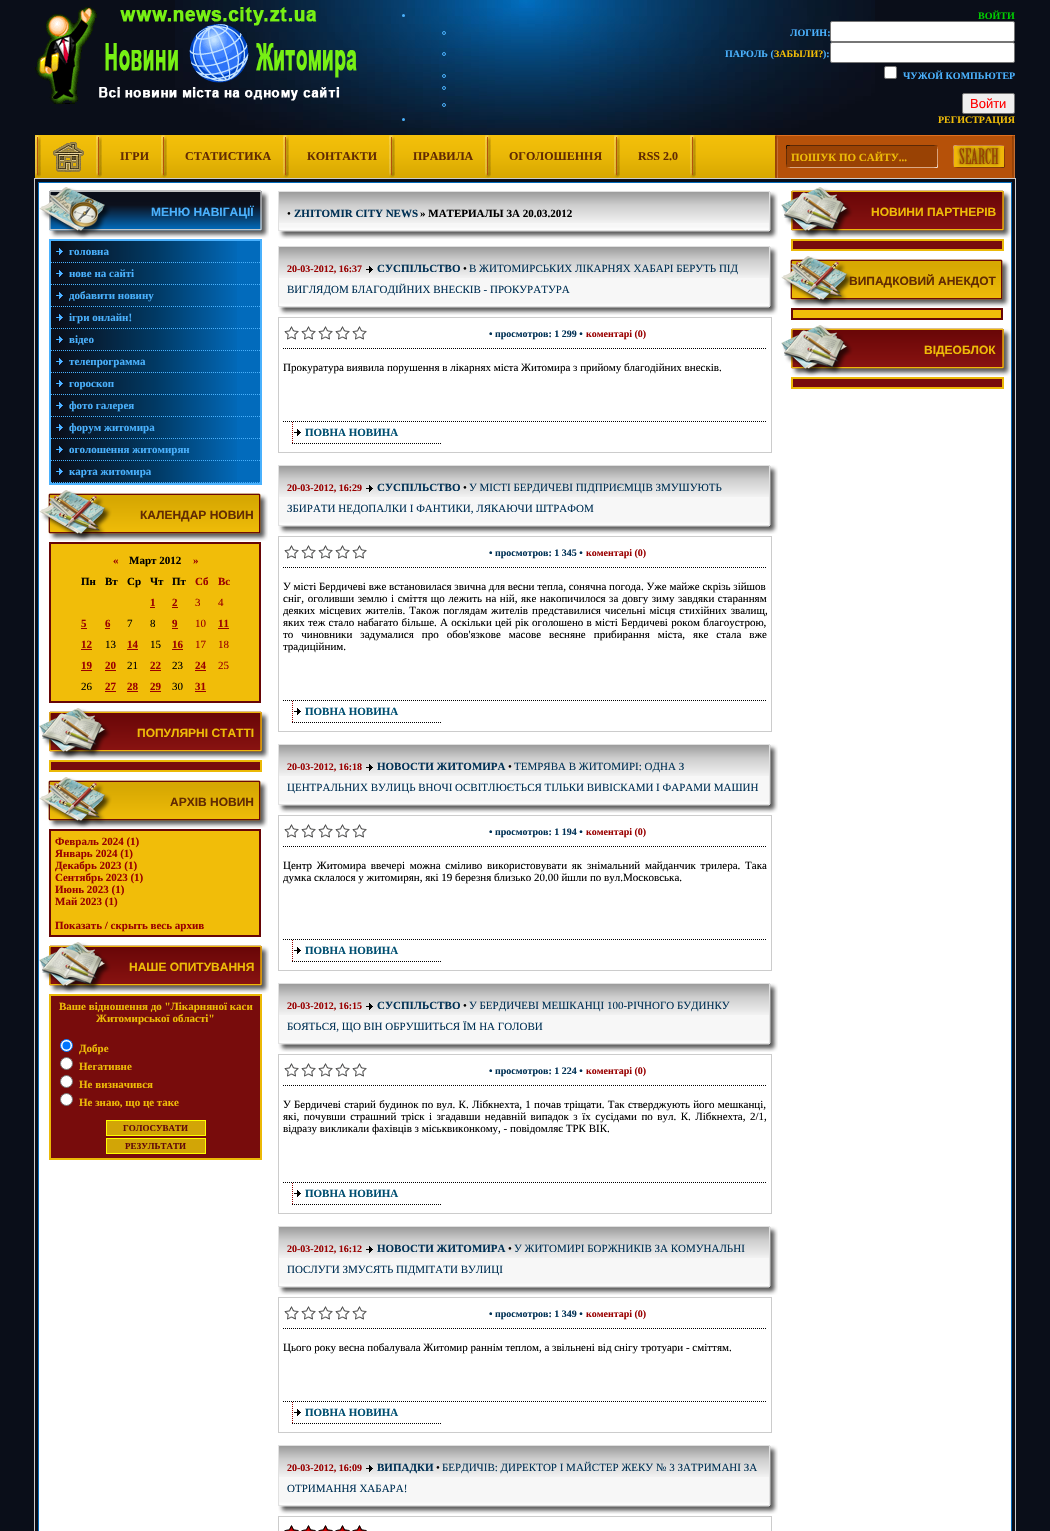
#include "include/core/SkBlurTypes.h"
#include "include/core/SkCanvas.h"
#include "include/core/SkData.h"
#include "include/core/SkFont.h"
#include "include/core/SkFontMgr.h"
#include "include/core/SkImage.h"
#include "include/core/SkMaskFilter.h"
#include "include/core/SkPaint.h"
#include "include/core/SkPathBuilder.h"
#include "include/core/SkTextBlob.h"
#include "include/effects/SkDashPathEffect.h"
#include "include/effects/SkGradientShader.h"
#include "include/utils/SkParsePath.h"

extern sk_sp<SkFontMgr> fontMgr;

static SkFont font(const char* family, int weight, float size, bool italic = false) {
    SkFontStyle style(weight, SkFontStyle::kNormal_Width,
        italic ? SkFontStyle::kItalic_Slant : SkFontStyle::kUpright_Slant);
    SkFont result(fontMgr->matchFamilyStyle(family, style), size);
    result.setSubpixel(true);
    return result;
}

static void drawLabel(SkCanvas* canvas, const char* s, float x, float y, const SkFont& font, SkColor color) {
    SkPaint ink(SkColor4f::FromColor(color));
    ink.setAntiAlias(true);
    canvas->drawString(s, x, y, font, ink);
}

static void drawTracked(SkCanvas* canvas, const char* s, float x, float y, const SkFont& font, const SkPaint& ink, float letter, float word) {
    std::vector<SkGlyphID> glyphs(font.countText(s, strlen(s), SkTextEncoding::kUTF8));
    std::vector<float> xs(glyphs.size());
    font.textToGlyphs(s, strlen(s), SkTextEncoding::kUTF8, glyphs);
    font.getXPos(glyphs, xs, x);
    float extra = 0;
    for (size_t i = 0; i < glyphs.size(); i++) {
        xs[i] += extra;
        extra += letter + word * (glyphs[i] == font.unicharToGlyph(' '));
    }
    canvas->drawTextBlob(SkTextBlob::MakeFromPosHGlyphs(glyphs, xs, y, font), 0, 0, ink);
}

static void fillRect(SkCanvas* canvas, float x, float y, float w, float h, SkColor color) {
    SkPaint ink(SkColor4f::FromColor(color));
    ink.setAntiAlias(true);
    canvas->drawRect(SkRect::MakeXYWH(x, y, w, h), ink);
}

static void drawPhoto(SkCanvas* canvas, const char* path, float x, float y, float w, float h) {
    auto image = SkImages::DeferredFromEncodedData(SkData::MakeFromFileName(path));
    canvas->drawImageRect(image, SkRect::MakeXYWH(x, y, w, h), SkSamplingOptions());
}

static SkPath parsePath(const char* data, bool evenOdd = false) {
    SkPath result = *SkParsePath::FromSVGString(data);
    if (evenOdd) result.setFillType(SkPathFillType::kEvenOdd);
    return result;
}

void draw(SkCanvas* canvas) {
    SkPaint paint;
    paint.setAntiAlias(true);
    canvas->clear(0xFF0A0E19);
    drawPhoto(canvas, "assets/img1.png", 175, 0, 700, 135);
    drawPhoto(canvas, "assets/img2.png", 35, 7, 322, 97);
    paint.setColor(0xFF4AB1FD);
    canvas->drawCircle(403.5f, 15.5f, 1.5f, paint);
    SkFont font1 = font("Liberation Serif", 700, 10);
    drawLabel(canvas, "ВОЙТИ", 978, 19, font1, 0xFF00CC00);
    paint.setStroke(true);
    paint.setStrokeWidth(1);
    canvas->drawCircle(444, 33, 1.5f, paint);
    drawLabel(canvas, "ЛОГИН:", 790, 36, font1, 0xFF4AB1FD);
    paint.setStroke(false);
    paint.setColor(0xFFFFFFFF);
    canvas->drawRoundRect(SkRect::MakeXYWH(830.5f, 21.5f, 184, 20), 1.5f, 1.5f, paint);
    paint.setStroke(true);
    paint.setColor(0xFF767676);
    canvas->drawRoundRect(SkRect::MakeXYWH(830.5f, 21.5f, 184, 20), 1.5f, 1.5f, paint);
    paint.setColor(0xFF4AB1FD);
    canvas->drawCircle(444, 54, 1.5f, paint);
    drawLabel(canvas, "ПАРОЛЬ (", 725, 57, font1, 0xFF4AB1FD);
    drawLabel(canvas, "ЗАБЫЛИ?", 774, 57, font1, 0xFFEEBB08);
    drawLabel(canvas, "):", 823, 57, font1, 0xFF4AB1FD);
    paint.setStroke(false);
    paint.setColor(0xFFFFFFFF);
    canvas->drawRoundRect(SkRect::MakeXYWH(830.5f, 42.5f, 184, 20), 1.5f, 1.5f, paint);
    paint.setStroke(true);
    paint.setColor(0xFF767676);
    canvas->drawRoundRect(SkRect::MakeXYWH(830.5f, 42.5f, 184, 20), 1.5f, 1.5f, paint);
    paint.setColor(0xFF4AB1FD);
    canvas->drawCircle(444, 76, 1.5f, paint);
    paint.setStroke(false);
    paint.setColor(0xFFFFFFFF);
    canvas->drawRoundRect(SkRect::MakeXYWH(884.5f, 66.5f, 12, 12), 1.5f, 1.5f, paint);
    paint.setStroke(true);
    paint.setColor(0xFF767676);
    canvas->drawRoundRect(SkRect::MakeXYWH(884.5f, 66.5f, 12, 12), 1.5f, 1.5f, paint);
    drawLabel(canvas, "ЧУЖОЙ КОМПЬЮТЕР", 903, 79, font1, 0xFF4AB1FD);
    paint.setColor(0xFF4AB1FD);
    canvas->drawCircle(444, 88, 1.5f, paint);
    canvas->drawCircle(444, 105, 1.5f, paint);
    paint.setStroke(false);
    paint.setColor(0xFFEFEFEF);
    canvas->drawRoundRect(SkRect::MakeXYWH(962.5f, 93.5f, 52, 20), 1.5f, 1.5f, paint);
    paint.setStroke(true);
    paint.setColor(0xFF767676);
    canvas->drawRoundRect(SkRect::MakeXYWH(962.5f, 93.5f, 52, 20), 1.5f, 1.5f, paint);
    SkFont font2 = font("Liberation Sans", 400, 13);
    drawLabel(canvas, "Войти", 970, 108, font2, 0xFFFF0000);
    paint.setStroke(false);
    paint.setColor(0xFF4AB1FD);
    canvas->drawCircle(403.5f, 119.5f, 1.5f, paint);
    drawLabel(canvas, "РЕГИСТРАЦИЯ", 938, 123, font1, 0xFFEEBB08);
    drawPhoto(canvas, "assets/img3.png", 41, 135, 734, 43);
    drawPhoto(canvas, "assets/img4.png", 35, 135, 6, 43);
    drawPhoto(canvas, "assets/img4.png", 96, 135, 6, 43);
    drawPhoto(canvas, "assets/img5.png", 53, 142, 31, 30);
    drawPhoto(canvas, "assets/img4.png", 161, 135, 6, 43);
    SkFont font3 = font("Liberation Serif", 700, 12);
    drawLabel(canvas, "ІГРИ", 120, 160, font3, 0xFF622B02);
    drawPhoto(canvas, "assets/img4.png", 283, 135, 6, 43);
    drawLabel(canvas, "СТАТИСТИКА", 185, 160, font3, 0xFF622B02);
    drawPhoto(canvas, "assets/img4.png", 389, 135, 6, 43);
    drawLabel(canvas, "КОНТАКТИ", 307, 160, font3, 0xFF622B02);
    drawPhoto(canvas, "assets/img4.png", 485, 135, 6, 43);
    drawLabel(canvas, "ПРАВИЛА", 413, 160, font3, 0xFF622B02);
    drawPhoto(canvas, "assets/img4.png", 614, 135, 6, 43);
    drawLabel(canvas, "ОГОЛОШЕННЯ", 509, 160, font3, 0xFF622B02);
    drawPhoto(canvas, "assets/img4.png", 690, 135, 6, 43);
    drawLabel(canvas, "RSS 2.0", 638, 160, font3, 0xFF622B02);
    drawPhoto(canvas, "assets/img6.png", 775, 135, 240, 43);
    SkFont font4 = font("Liberation Serif", 700, 11);
    drawLabel(canvas, "ПОШУК ПО САЙТУ...", 791, 161, font4, 0xFFEEBB08);
    drawPhoto(canvas, "assets/img7.png", 953, 145, 52, 23);
    paint.setStroke(true);
    paint.setColor(0xFFCCCCCC);
    canvas->drawRect(SkRect::MakeXYWH(34.5f, 178.5f, 981, 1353), paint);
    paint.setStroke(false);
    paint.setColor(0xFFFFFFFF);
    canvas->drawRect(SkRect::MakeXYWH(38.5f, 182.5f, 973, 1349), paint);
    paint.setStroke(true);
    paint.setColor(0xFF026BBC);
    canvas->drawRect(SkRect::MakeXYWH(38.5f, 182.5f, 973, 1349), paint);
    drawPhoto(canvas, "assets/img8.png", 39, 187, 230, 51);
    SkFont font5 = font("Liberation Sans", 700, 12);
    drawLabel(canvas, "МЕНЮ НАВІГАЦІЇ", 151, 216, font5, 0xFF4AB1FD);
    fillRect(canvas, 237, 241, 23, 242, 0xFF026BBC);
    drawPhoto(canvas, "assets/img9.png", 51, 241, 186, 242);
    paint.setStrokeWidth(2);
    paint.setColor(0xFF4AB1FD);
    canvas->drawRect(SkRect::MakeXYWH(50, 240, 211, 244), paint);
    drawPhoto(canvas, "assets/img10.png", 56, 248, 7, 7);
    paint.setStrokeWidth(1);
    paint.setPathEffect(SkDashPathEffect::Make({{1, 1}}, 0));
    canvas->drawPath(parsePath("M51 262.5H260"), paint);
    paint.setPathEffect(nullptr);
    drawLabel(canvas, "головна", 69, 255, font4, 0xFF4AB1FD);
    drawPhoto(canvas, "assets/img10.png", 56, 270, 7, 7);
    paint.setPathEffect(SkDashPathEffect::Make({{1, 1}}, 0));
    canvas->drawPath(parsePath("M51 284.5H260"), paint);
    paint.setPathEffect(nullptr);
    drawLabel(canvas, "нове на сайті", 69, 277, font4, 0xFF4AB1FD);
    drawPhoto(canvas, "assets/img10.png", 56, 292, 7, 7);
    paint.setPathEffect(SkDashPathEffect::Make({{1, 1}}, 0));
    canvas->drawPath(parsePath("M51 306.5H260"), paint);
    paint.setPathEffect(nullptr);
    drawLabel(canvas, "добавити новину", 69, 299, font4, 0xFF4AB1FD);
    drawPhoto(canvas, "assets/img10.png", 56, 314, 7, 7);
    paint.setPathEffect(SkDashPathEffect::Make({{1, 1}}, 0));
    canvas->drawPath(parsePath("M51 328.5H260"), paint);
    paint.setPathEffect(nullptr);
    drawLabel(canvas, "ігри онлайн!", 69, 321, font4, 0xFF4AB1FD);
    drawPhoto(canvas, "assets/img10.png", 56, 336, 7, 7);
    paint.setPathEffect(SkDashPathEffect::Make({{1, 1}}, 0));
    canvas->drawPath(parsePath("M51 350.5H260"), paint);
    paint.setPathEffect(nullptr);
    drawLabel(canvas, "відео", 69, 343, font4, 0xFF4AB1FD);
    drawPhoto(canvas, "assets/img10.png", 56, 358, 7, 7);
    paint.setPathEffect(SkDashPathEffect::Make({{1, 1}}, 0));
    canvas->drawPath(parsePath("M51 372.5H260"), paint);
    paint.setPathEffect(nullptr);
    drawLabel(canvas, "телепрограмма", 69, 365, font4, 0xFF4AB1FD);
    drawPhoto(canvas, "assets/img10.png", 56, 380, 7, 7);
    paint.setPathEffect(SkDashPathEffect::Make({{1, 1}}, 0));
    canvas->drawPath(parsePath("M51 394.5H260"), paint);
    paint.setPathEffect(nullptr);
    drawLabel(canvas, "гороскоп", 69, 387, font4, 0xFF4AB1FD);
    drawPhoto(canvas, "assets/img10.png", 56, 402, 7, 7);
    paint.setPathEffect(SkDashPathEffect::Make({{1, 1}}, 0));
    canvas->drawPath(parsePath("M51 416.5H260"), paint);
    paint.setPathEffect(nullptr);
    drawLabel(canvas, "фото галерея", 69, 409, font4, 0xFF4AB1FD);
    drawPhoto(canvas, "assets/img10.png", 56, 424, 7, 7);
    paint.setPathEffect(SkDashPathEffect::Make({{1, 1}}, 0));
    canvas->drawPath(parsePath("M51 438.5H260"), paint);
    paint.setPathEffect(nullptr);
    drawLabel(canvas, "форум житомира", 69, 431, font4, 0xFF4AB1FD);
    drawPhoto(canvas, "assets/img10.png", 56, 446, 7, 7);
    paint.setPathEffect(SkDashPathEffect::Make({{1, 1}}, 0));
    canvas->drawPath(parsePath("M51 460.5H260"), paint);
    paint.setPathEffect(nullptr);
    drawLabel(canvas, "оголошення житомирян", 69, 453, font4, 0xFF4AB1FD);
    drawPhoto(canvas, "assets/img10.png", 56, 468, 7, 7);
    paint.setPathEffect(SkDashPathEffect::Make({{1, 1}}, 0));
    canvas->drawPath(parsePath("M51 482.5H260"), paint);
    paint.setPathEffect(nullptr);
    drawLabel(canvas, "карта житомира", 69, 475, font4, 0xFF4AB1FD);
    drawPhoto(canvas, "assets/img11.png", 39, 490, 229, 51);
    drawLabel(canvas, "КАЛЕНДАР НОВИН", 140, 519, font5, 0xFF622B02);
    paint.setStroke(false);
    paint.setColor(0xFFF1BD09);
    canvas->drawRect(SkRect::MakeXYWH(50, 543, 210, 159), paint);
    paint.setStroke(true);
    paint.setStrokeWidth(2);
    paint.setColor(0xFF670506);
    canvas->drawRect(SkRect::MakeXYWH(50, 543, 210, 159), paint);
    drawLabel(canvas, "«", 113, 564, font4, 0xFF990000);
    drawLabel(canvas, "Март 2012", 129, 564, font4, 0xFF000000);
    drawLabel(canvas, "»", 193, 564, font4, 0xFF990000);
    drawLabel(canvas, "Пн", 81, 585, font4, 0xFF000000);
    drawLabel(canvas, "Вт", 105, 585, font4, 0xFF000000);
    drawLabel(canvas, "Ср", 127, 585, font4, 0xFF000000);
    drawLabel(canvas, "Чт", 150, 585, font4, 0xFF000000);
    drawLabel(canvas, "Пт", 172, 585, font4, 0xFF000000);
    drawLabel(canvas, "Сб", 195, 585, font4, 0xFF990000);
    drawLabel(canvas, "Вс", 218, 585, font4, 0xFF990000);
    drawLabel(canvas, "1", 150, 606, font4, 0xFF990000);
    fillRect(canvas, 150, 607, 5, 1, 0xFF990000);
    drawLabel(canvas, "2", 172, 606, font4, 0xFF990000);
    fillRect(canvas, 172, 607, 6, 1, 0xFF990000);
    SkFont font6 = font("Liberation Serif", 400, 11);
    drawLabel(canvas, "3", 195, 606, font6, 0xFF990000);
    drawLabel(canvas, "4", 218, 606, font6, 0xFF990000);
    drawLabel(canvas, "5", 81, 627, font4, 0xFF990000);
    fillRect(canvas, 81, 628, 6, 1, 0xFF990000);
    drawLabel(canvas, "6", 105, 627, font4, 0xFF990000);
    fillRect(canvas, 105, 628, 5, 1, 0xFF990000);
    drawLabel(canvas, "7", 127, 627, font6, 0xFF000000);
    drawLabel(canvas, "8", 150, 627, font6, 0xFF000000);
    drawLabel(canvas, "9", 172, 627, font4, 0xFF990000);
    fillRect(canvas, 172, 628, 6, 1, 0xFF990000);
    drawLabel(canvas, "10", 195, 627, font6, 0xFF990000);
    drawLabel(canvas, "11", 218, 627, font4, 0xFF990000);
    fillRect(canvas, 218, 628, 11, 1, 0xFF990000);
    drawLabel(canvas, "12", 81, 648, font4, 0xFF990000);
    fillRect(canvas, 81, 649, 11, 1, 0xFF990000);
    drawLabel(canvas, "13", 105, 648, font6, 0xFF000000);
    drawLabel(canvas, "14", 127, 648, font4, 0xFF990000);
    fillRect(canvas, 127, 649, 11, 1, 0xFF990000);
    drawLabel(canvas, "15", 150, 648, font6, 0xFF000000);
    drawLabel(canvas, "16", 172, 648, font4, 0xFF990000);
    fillRect(canvas, 172, 649, 11, 1, 0xFF990000);
    drawLabel(canvas, "17", 195, 648, font6, 0xFF990000);
    drawLabel(canvas, "18", 218, 648, font6, 0xFF990000);
    drawLabel(canvas, "19", 81, 669, font4, 0xFF990000);
    fillRect(canvas, 81, 670, 11, 1, 0xFF990000);
    drawLabel(canvas, "20", 105, 669, font4, 0xFF990000);
    fillRect(canvas, 105, 670, 11, 1, 0xFF990000);
    drawLabel(canvas, "21", 127, 669, font6, 0xFF000000);
    drawLabel(canvas, "22", 150, 669, font4, 0xFF990000);
    fillRect(canvas, 150, 670, 11, 1, 0xFF990000);
    drawLabel(canvas, "23", 172, 669, font6, 0xFF000000);
    drawLabel(canvas, "24", 195, 669, font4, 0xFF990000);
    fillRect(canvas, 195, 670, 11, 1, 0xFF990000);
    drawLabel(canvas, "25", 218, 669, font6, 0xFF990000);
    drawLabel(canvas, "26", 81, 690, font6, 0xFF000000);
    drawLabel(canvas, "27", 105, 690, font4, 0xFF990000);
    fillRect(canvas, 105, 691, 11, 1, 0xFF990000);
    drawLabel(canvas, "28", 127, 690, font4, 0xFF990000);
    fillRect(canvas, 127, 691, 11, 1, 0xFF990000);
    drawLabel(canvas, "29", 150, 690, font4, 0xFF990000);
    fillRect(canvas, 150, 691, 11, 1, 0xFF990000);
    drawLabel(canvas, "30", 172, 690, font6, 0xFF000000);
    drawLabel(canvas, "31", 195, 690, font4, 0xFF990000);
    fillRect(canvas, 195, 691, 11, 1, 0xFF990000);
    drawPhoto(canvas, "assets/img12.png", 39, 708, 230, 51);
    drawLabel(canvas, "ПОПУЛЯРНІ СТАТТІ", 137, 737, font5, 0xFFEEBB08);
    paint.setStroke(false);
    paint.setColor(0xFF780C0C);
    canvas->drawRect(SkRect::MakeXYWH(50, 761, 211, 10), paint);
    paint.setStroke(true);
    paint.setColor(0xFFEBB907);
    canvas->drawRect(SkRect::MakeXYWH(50, 761, 211, 10), paint);
    drawPhoto(canvas, "assets/img11.png", 39, 777, 229, 51);
    drawLabel(canvas, "АРХІВ НОВИН", 170, 806, font5, 0xFF622B02);
    paint.setStroke(false);
    paint.setColor(0xFFF1BD09);
    canvas->drawRect(SkRect::MakeXYWH(50, 830, 210, 106), paint);
    paint.setStroke(true);
    paint.setColor(0xFF670506);
    canvas->drawRect(SkRect::MakeXYWH(50, 830, 210, 106), paint);
    drawLabel(canvas, "Февраль 2024 (1)", 55, 845, font4, 0xFF990000);
    drawLabel(canvas, "Январь 2024 (1)", 55, 857, font4, 0xFF990000);
    drawLabel(canvas, "Декабрь 2023 (1)", 55, 869, font4, 0xFF990000);
    drawLabel(canvas, "Сентябрь 2023 (1)", 55, 881, font4, 0xFF990000);
    drawLabel(canvas, "Июнь 2023 (1)", 55, 893, font4, 0xFF990000);
    drawLabel(canvas, "Май 2023 (1)", 55, 905, font4, 0xFF990000);
    drawLabel(canvas, "Показать / скрыть весь архив", 55, 929, font4, 0xFF990000);
    drawPhoto(canvas, "assets/img12.png", 39, 942, 230, 51);
    drawLabel(canvas, "НАШЕ ОПИТУВАННЯ", 129, 971, font5, 0xFFEEBB08);
    paint.setStroke(false);
    paint.setColor(0xFF780C0C);
    canvas->drawRect(SkRect::MakeXYWH(50, 995, 211, 164), paint);
    paint.setStroke(true);
    paint.setColor(0xFFEBB907);
    canvas->drawRect(SkRect::MakeXYWH(50, 995, 211, 164), paint);
    drawLabel(canvas, "Ваше відношення до \"Лікарняної каси", 59, 1010, font4, 0xFFEEBB08);
    drawLabel(canvas, "Житомирської області\"", 96, 1022, font4, 0xFFEEBB08);
    paint.setStroke(false);
    paint.setColor(0xFFFFFFFF);
    canvas->drawCircle(66.5f, 1045.5f, 6, paint);
    paint.setStroke(true);
    paint.setStrokeWidth(1);
    paint.setColor(0xFF0075FF);
    canvas->drawCircle(66.5f, 1045.5f, 6, paint);
    paint.setStroke(false);
    canvas->drawCircle(66.5f, 1045.5f, 4, paint);
    drawLabel(canvas, "Добре", 79, 1052, font4, 0xFFEEBB08);
    paint.setColor(0xFFFFFFFF);
    canvas->drawCircle(66.5f, 1063.5f, 6, paint);
    paint.setStroke(true);
    paint.setColor(0xFF767676);
    canvas->drawCircle(66.5f, 1063.5f, 6, paint);
    drawLabel(canvas, "Негативне", 79, 1070, font4, 0xFFEEBB08);
    paint.setStroke(false);
    paint.setColor(0xFFFFFFFF);
    canvas->drawCircle(66.5f, 1081.5f, 6, paint);
    paint.setStroke(true);
    paint.setColor(0xFF767676);
    canvas->drawCircle(66.5f, 1081.5f, 6, paint);
    drawLabel(canvas, "Не визначився", 79, 1088, font4, 0xFFEEBB08);
    paint.setStroke(false);
    paint.setColor(0xFFFFFFFF);
    canvas->drawCircle(66.5f, 1099.5f, 6, paint);
    paint.setStroke(true);
    paint.setColor(0xFF767676);
    canvas->drawCircle(66.5f, 1099.5f, 6, paint);
    drawLabel(canvas, "Не знаю, що це таке", 79, 1106, font4, 0xFFEEBB08);
    paint.setStroke(false);
    paint.setColor(0xFFD2A506);
    canvas->drawRect(SkRect::MakeXYWH(106.5f, 1120.5f, 99, 15), paint);
    paint.setStroke(true);
    paint.setColor(0xFFFFFF00);
    canvas->drawRect(SkRect::MakeXYWH(106.5f, 1120.5f, 99, 15), paint);
    SkFont font7 = font("Liberation Serif", 700, 9);
    drawLabel(canvas, "ГОЛОСУВАТИ", 123, 1131, font7, 0xFF610A0A);
    paint.setStroke(false);
    paint.setColor(0xFFD2A506);
    canvas->drawRect(SkRect::MakeXYWH(106.5f, 1138.5f, 99, 15), paint);
    paint.setStroke(true);
    paint.setColor(0xFFFFFF00);
    canvas->drawRect(SkRect::MakeXYWH(106.5f, 1138.5f, 99, 15), paint);
    drawLabel(canvas, "РЕЗУЛЬТАТИ", 125, 1149, font7, 0xFF610A0A);
    drawPhoto(canvas, "assets/img13.png", 278, 191, 500, 36);
    drawPhoto(canvas, "assets/img14.png", 279, 191, 499, 32);
    drawLabel(canvas, "•", 287, 217, font6, 0xFF000000);
    drawLabel(canvas, "ZHITOMIR CITY NEWS", 294, 217, font4, 0xFF003155);
    drawLabel(canvas, "» МАТЕРИАЛЫ ЗА 20.03.2012", 420, 217, font4, 0xFF000000);
    drawPhoto(canvas, "assets/img15.png", 278, 227, 500, 12);
    drawPhoto(canvas, "assets/img16.png", 278, 246, 500, 57);
    drawPhoto(canvas, "assets/img14.png", 279, 246, 499, 32);
    drawLabel(canvas, "20-03-2012, 16:37", 287, 272, font1, 0xFF990000);
    drawPhoto(canvas, "assets/img17.png", 366, 266, 7, 7);
    drawLabel(canvas, "СУСПІЛЬСТВО", 377, 272, font4, 0xFF003155);
    drawLabel(canvas, "•", 463, 272, font6, 0xFF000000);
    drawLabel(canvas, "В ЖИТОМИРСЬКИХ ЛІКАРНЯХ ХАБАРІ БЕРУТЬ ПІД", 469, 272, font6, 0xFF003155);
    drawLabel(canvas, "ВИГЛЯДОМ БЛАГОДІЙНИХ ВНЕСКІВ - ПРОКУРАТУРА", 287, 293, font6, 0xFF003155);
    drawPhoto(canvas, "assets/img15.png", 278, 303, 500, 12);
    paint.setColor(0xFFCCCCCC);
    canvas->drawRect(SkRect::MakeXYWH(278.5f, 317.5f, 493, 135), paint);
    drawPhoto(canvas, "assets/img18.png", 284, 326, 83, 14);
    drawLabel(canvas, "• просмотров: 1 299 •", 489, 337, font1, 0xFF003155);
    drawLabel(canvas, "коментарі (0)", 586, 337, font1, 0xFF990000);
    paint.setColor(0xFF000000);
    paint.setPathEffect(SkDashPathEffect::Make({{1, 1}}, 0));
    canvas->drawPath(parsePath("M283 348.5H767"), paint);
    paint.setPathEffect(nullptr);
    paint.setPathEffect(SkDashPathEffect::Make({{1, 1}}, 0));
    canvas->drawPath(parsePath("M283 421.5H767"), paint);
    paint.setPathEffect(nullptr);
    drawLabel(canvas, "Прокуратура виявила порушення в лікарнях міста Житомира з прийому благодійних внесків.", 283, 371, font6, 0xFF000000);
    drawPhoto(canvas, "assets/img19.png", 294, 429, 7, 7);
    paint.setPathEffect(SkDashPathEffect::Make({{1, 1}}, 0));
    canvas->drawPath(parsePath("M292 443.5H442"), paint);
    paint.setPathEffect(nullptr);
    paint.setColor(0xFF990000);
    paint.setPathEffect(SkDashPathEffect::Make({{1, 1}}, 0));
    canvas->drawPath(parsePath("M292.5 422V444"), paint);
    paint.setPathEffect(nullptr);
    drawLabel(canvas, "ПОВНА НОВИНА", 305, 436, font4, 0xFF004F71);
    drawPhoto(canvas, "assets/img16.png", 278, 465, 500, 57);
    drawPhoto(canvas, "assets/img14.png", 279, 465, 499, 32);
    drawLabel(canvas, "20-03-2012, 16:29", 287, 491, font1, 0xFF990000);
    drawPhoto(canvas, "assets/img17.png", 366, 485, 7, 7);
    drawLabel(canvas, "СУСПІЛЬСТВО", 377, 491, font4, 0xFF003155);
    drawLabel(canvas, "•", 463, 491, font6, 0xFF000000);
    drawLabel(canvas, "У МІСТІ БЕРДИЧЕВІ ПІДПРИЄМЦІВ ЗМУШУЮТЬ", 469, 491, font6, 0xFF003155);
    drawLabel(canvas, "ЗБИРАТИ НЕДОПАЛКИ І ФАНТИКИ, ЛЯКАЮЧИ ШТРАФОМ", 287, 512, font6, 0xFF003155);
    drawPhoto(canvas, "assets/img15.png", 278, 522, 500, 12);
    paint.setColor(0xFFCCCCCC);
    canvas->drawRect(SkRect::MakeXYWH(278.5f, 536.5f, 493, 195), paint);
    drawPhoto(canvas, "assets/img18.png", 284, 545, 83, 14);
    drawLabel(canvas, "• просмотров: 1 345 •", 489, 556, font1, 0xFF003155);
    drawLabel(canvas, "коментарі (0)", 586, 556, font1, 0xFF990000);
    paint.setColor(0xFF000000);
    paint.setPathEffect(SkDashPathEffect::Make({{1, 1}}, 0));
    canvas->drawPath(parsePath("M283 567.5H767"), paint);
    paint.setPathEffect(nullptr);
    paint.setPathEffect(SkDashPathEffect::Make({{1, 1}}, 0));
    canvas->drawPath(parsePath("M283 700.5H767"), paint);
    paint.setPathEffect(nullptr);
    drawLabel(canvas, "У місті Бердичеві вже встановилася звична для весни тепла, сонячна погода. Уже майже скрізь зійшов", 283, 590, font6, 0xFF000000);
    paint.setStroke(false);
    drawTracked(canvas, "сніг, оголивши землю і сміття що лежить на ній, яке накопичилося за довгу зиму завдяки старанням", 283, 602, font6, paint, 0, 0.8f);
    drawTracked(canvas, "деяких місцевих жителів. Також поглядам жителів представилися чисельні місця стихійних звалищ,", 283, 614, font6, paint, 0, 1.25f);
    drawTracked(canvas, "яких теж стало набагато більше. А оскільки цей рік оголошено в місті Бердичеві роком благоустрою,", 283, 626, font6, paint, 0, 0.5f);
    drawTracked(canvas, "то чиновники задумалися про обов'язкове масове весняне прибирання міста, яке стала вже", 283, 638, font6, paint, 0, 5.25f);
    drawLabel(canvas, "традиційним.", 283, 650, font6, 0xFF000000);
    drawPhoto(canvas, "assets/img19.png", 294, 708, 7, 7);
    paint.setStroke(true);
    paint.setPathEffect(SkDashPathEffect::Make({{1, 1}}, 0));
    canvas->drawPath(parsePath("M292 722.5H442"), paint);
    paint.setPathEffect(nullptr);
    paint.setColor(0xFF990000);
    paint.setPathEffect(SkDashPathEffect::Make({{1, 1}}, 0));
    canvas->drawPath(parsePath("M292.5 701V723"), paint);
    paint.setPathEffect(nullptr);
    drawLabel(canvas, "ПОВНА НОВИНА", 305, 715, font4, 0xFF004F71);
    drawPhoto(canvas, "assets/img16.png", 278, 744, 500, 57);
    drawPhoto(canvas, "assets/img14.png", 279, 744, 499, 32);
    drawLabel(canvas, "20-03-2012, 16:18", 287, 770, font1, 0xFF990000);
    drawPhoto(canvas, "assets/img17.png", 366, 764, 7, 7);
    drawLabel(canvas, "НОВОСТИ ЖИТОМИРА", 377, 770, font4, 0xFF003155);
    drawLabel(canvas, "•", 508, 770, font6, 0xFF000000);
    drawLabel(canvas, "ТЕМРЯВА В ЖИТОМИРІ: ОДНА З", 514, 770, font6, 0xFF003155);
    drawLabel(canvas, "ЦЕНТРАЛЬНИХ ВУЛИЦЬ ВНОЧІ ОСВІТЛЮЄТЬСЯ ТІЛЬКИ ВИВІСКАМИ І ФАРАМИ МАШИН", 287, 791, font6, 0xFF003155);
    drawPhoto(canvas, "assets/img15.png", 278, 801, 500, 12);
    paint.setColor(0xFFCCCCCC);
    canvas->drawRect(SkRect::MakeXYWH(278.5f, 815.5f, 493, 155), paint);
    drawPhoto(canvas, "assets/img18.png", 284, 824, 83, 14);
    drawLabel(canvas, "• просмотров: 1 194 •", 489, 835, font1, 0xFF003155);
    drawLabel(canvas, "коментарі (0)", 586, 835, font1, 0xFF990000);
    paint.setColor(0xFF000000);
    paint.setPathEffect(SkDashPathEffect::Make({{1, 1}}, 0));
    canvas->drawPath(parsePath("M283 846.5H767"), paint);
    paint.setPathEffect(nullptr);
    paint.setPathEffect(SkDashPathEffect::Make({{1, 1}}, 0));
    canvas->drawPath(parsePath("M283 939.5H767"), paint);
    paint.setPathEffect(nullptr);
    paint.setStroke(false);
    drawTracked(canvas, "Центр Житомира ввечері можна сміливо використовувати як знімальний майданчик трилера. Така", 283, 869, font6, paint, 0, 2);
    drawLabel(canvas, "думка склалося у житомирян, які 19 березня близько 20.00 йшли по вул.Московська.", 283, 881, font6, 0xFF000000);
    drawPhoto(canvas, "assets/img19.png", 294, 947, 7, 7);
    paint.setStroke(true);
    paint.setPathEffect(SkDashPathEffect::Make({{1, 1}}, 0));
    canvas->drawPath(parsePath("M292 961.5H442"), paint);
    paint.setPathEffect(nullptr);
    paint.setColor(0xFF990000);
    paint.setPathEffect(SkDashPathEffect::Make({{1, 1}}, 0));
    canvas->drawPath(parsePath("M292.5 940V962"), paint);
    paint.setPathEffect(nullptr);
    drawLabel(canvas, "ПОВНА НОВИНА", 305, 954, font4, 0xFF004F71);
    drawPhoto(canvas, "assets/img16.png", 278, 983, 500, 57);
    drawPhoto(canvas, "assets/img14.png", 279, 983, 499, 32);
    drawLabel(canvas, "20-03-2012, 16:15", 287, 1009, font1, 0xFF990000);
    drawPhoto(canvas, "assets/img17.png", 366, 1003, 7, 7);
    drawLabel(canvas, "СУСПІЛЬСТВО", 377, 1009, font4, 0xFF003155);
    drawLabel(canvas, "•", 463, 1009, font6, 0xFF000000);
    drawLabel(canvas, "У БЕРДИЧЕВІ МЕШКАНЦІ 100-РІЧНОГО БУДИНКУ", 469, 1009, font6, 0xFF003155);
    drawLabel(canvas, "БОЯТЬСЯ, ЩО ВІН ОБРУШИТЬСЯ ЇМ НА ГОЛОВИ", 287, 1030, font6, 0xFF003155);
    drawPhoto(canvas, "assets/img15.png", 278, 1040, 500, 12);
    paint.setColor(0xFFCCCCCC);
    canvas->drawRect(SkRect::MakeXYWH(278.5f, 1054.5f, 493, 159), paint);
    drawPhoto(canvas, "assets/img18.png", 284, 1063, 83, 14);
    drawLabel(canvas, "• просмотров: 1 224 •", 489, 1074, font1, 0xFF003155);
    drawLabel(canvas, "коментарі (0)", 586, 1074, font1, 0xFF990000);
    paint.setColor(0xFF000000);
    paint.setPathEffect(SkDashPathEffect::Make({{1, 1}}, 0));
    canvas->drawPath(parsePath("M283 1085.5H767"), paint);
    paint.setPathEffect(nullptr);
    paint.setPathEffect(SkDashPathEffect::Make({{1, 1}}, 0));
    canvas->drawPath(parsePath("M283 1182.5H767"), paint);
    paint.setPathEffect(nullptr);
    paint.setStroke(false);
    drawTracked(canvas, "У Бердичеві старий будинок по вул. К. Лібкнехта, 1 почав тріщати. Так стверджують його мешканці,", 283, 1108, font6, paint, 0, 0.5f);
    drawTracked(canvas, "які, почувши страшний тріск і згадавши недавній випадок з їх сусідами по вул. К. Лібкнехта, 2/1,", 283, 1120, font6, paint, 0, 1.75f);
    drawLabel(canvas, "відразу викликали фахівців з міськвиконкому, - повідомляє ТРК ВІК.", 283, 1132, font6, 0xFF000000);
    drawPhoto(canvas, "assets/img19.png", 294, 1190, 7, 7);
    paint.setStroke(true);
    paint.setPathEffect(SkDashPathEffect::Make({{1, 1}}, 0));
    canvas->drawPath(parsePath("M292 1204.5H442"), paint);
    paint.setPathEffect(nullptr);
    paint.setColor(0xFF990000);
    paint.setPathEffect(SkDashPathEffect::Make({{1, 1}}, 0));
    canvas->drawPath(parsePath("M292.5 1183V1205"), paint);
    paint.setPathEffect(nullptr);
    drawLabel(canvas, "ПОВНА НОВИНА", 305, 1197, font4, 0xFF004F71);
    drawPhoto(canvas, "assets/img16.png", 278, 1226, 500, 57);
    drawPhoto(canvas, "assets/img14.png", 279, 1226, 499, 32);
    drawLabel(canvas, "20-03-2012, 16:12", 287, 1252, font1, 0xFF990000);
    drawPhoto(canvas, "assets/img17.png", 366, 1246, 7, 7);
    drawLabel(canvas, "НОВОСТИ ЖИТОМИРА", 377, 1252, font4, 0xFF003155);
    drawLabel(canvas, "•", 508, 1252, font6, 0xFF000000);
    drawLabel(canvas, "У ЖИТОМИРІ БОРЖНИКІВ ЗА КОМУНАЛЬНІ", 514, 1252, font6, 0xFF003155);
    drawLabel(canvas, "ПОСЛУГИ ЗМУСЯТЬ ПІДМІТАТИ ВУЛИЦІ", 287, 1273, font6, 0xFF003155);
    drawPhoto(canvas, "assets/img15.png", 278, 1283, 500, 12);
    paint.setColor(0xFFCCCCCC);
    canvas->drawRect(SkRect::MakeXYWH(278.5f, 1297.5f, 493, 135), paint);
    drawPhoto(canvas, "assets/img18.png", 284, 1306, 83, 14);
    drawLabel(canvas, "• просмотров: 1 349 •", 489, 1317, font1, 0xFF003155);
    drawLabel(canvas, "коментарі (0)", 586, 1317, font1, 0xFF990000);
    paint.setColor(0xFF000000);
    paint.setPathEffect(SkDashPathEffect::Make({{1, 1}}, 0));
    canvas->drawPath(parsePath("M283 1328.5H767"), paint);
    paint.setPathEffect(nullptr);
    paint.setPathEffect(SkDashPathEffect::Make({{1, 1}}, 0));
    canvas->drawPath(parsePath("M283 1401.5H767"), paint);
    paint.setPathEffect(nullptr);
    drawLabel(canvas, "Цього року весна побалувала Житомир раннім теплом, а звільнені від снігу тротуари - сміттям.", 283, 1351, font6, 0xFF000000);
    drawPhoto(canvas, "assets/img19.png", 294, 1409, 7, 7);
    paint.setPathEffect(SkDashPathEffect::Make({{1, 1}}, 0));
    canvas->drawPath(parsePath("M292 1423.5H442"), paint);
    paint.setPathEffect(nullptr);
    paint.setColor(0xFF990000);
    paint.setPathEffect(SkDashPathEffect::Make({{1, 1}}, 0));
    canvas->drawPath(parsePath("M292.5 1402V1424"), paint);
    paint.setPathEffect(nullptr);
    drawLabel(canvas, "ПОВНА НОВИНА", 305, 1416, font4, 0xFF004F71);
    drawPhoto(canvas, "assets/img16.png", 278, 1445, 500, 57);
    drawPhoto(canvas, "assets/img14.png", 279, 1445, 499, 32);
    drawLabel(canvas, "20-03-2012, 16:09", 287, 1471, font1, 0xFF990000);
    drawPhoto(canvas, "assets/img17.png", 366, 1465, 7, 7);
    drawLabel(canvas, "ВИПАДКИ", 377, 1471, font4, 0xFF003155);
    drawLabel(canvas, "•", 436, 1471, font6, 0xFF000000);
    drawLabel(canvas, "БЕРДИЧІВ: ДИРЕКТОР І МАЙСТЕР ЖЕКУ № 3 ЗАТРИМАНІ ЗА", 442, 1471, font6, 0xFF003155);
    drawLabel(canvas, "ОТРИМАННЯ ХАБАРА!", 287, 1492, font6, 0xFF003155);
    drawPhoto(canvas, "assets/img15.png", 278, 1502, 500, 12);
    paint.setColor(0xFFCCCCCC);
    canvas->drawRect(SkRect::MakeXYWH(278.5f, 1516.5f, 493, 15), paint);
    drawPhoto(canvas, "assets/img20.png", 284, 1525, 83, 6);
    drawPhoto(canvas, "assets/img21.png", 284, 1525, 83, 6);
    drawPhoto(canvas, "assets/img12.png", 781, 187, 230, 51);
    drawLabel(canvas, "НОВИНИ ПАРТНЕРІВ", 871, 216, font5, 0xFFEEBB08);
    paint.setStroke(false);
    paint.setColor(0xFF780C0C);
    canvas->drawRect(SkRect::MakeXYWH(792, 240, 211, 10), paint);
    paint.setStroke(true);
    paint.setStrokeWidth(2);
    paint.setColor(0xFFEBB907);
    canvas->drawRect(SkRect::MakeXYWH(792, 240, 211, 10), paint);
    drawPhoto(canvas, "assets/img11.png", 781, 256, 229, 51);
    drawLabel(canvas, "ВИПАДКОВИЙ АНЕКДОТ", 849, 285, font5, 0xFF622B02);
    paint.setStroke(false);
    paint.setColor(0xFFF1BD09);
    canvas->drawRect(SkRect::MakeXYWH(792, 309, 210, 10), paint);
    paint.setStroke(true);
    paint.setColor(0xFF670506);
    canvas->drawRect(SkRect::MakeXYWH(792, 309, 210, 10), paint);
    drawPhoto(canvas, "assets/img12.png", 781, 325, 230, 51);
    drawLabel(canvas, "ВІДЕОБЛОК", 924, 354, font5, 0xFFEEBB08);
    paint.setStroke(false);
    paint.setColor(0xFF780C0C);
    canvas->drawRect(SkRect::MakeXYWH(792, 378, 211, 10), paint);
    paint.setStroke(true);
    paint.setColor(0xFFEBB907);
    canvas->drawRect(SkRect::MakeXYWH(792, 378, 211, 10), paint);
}
